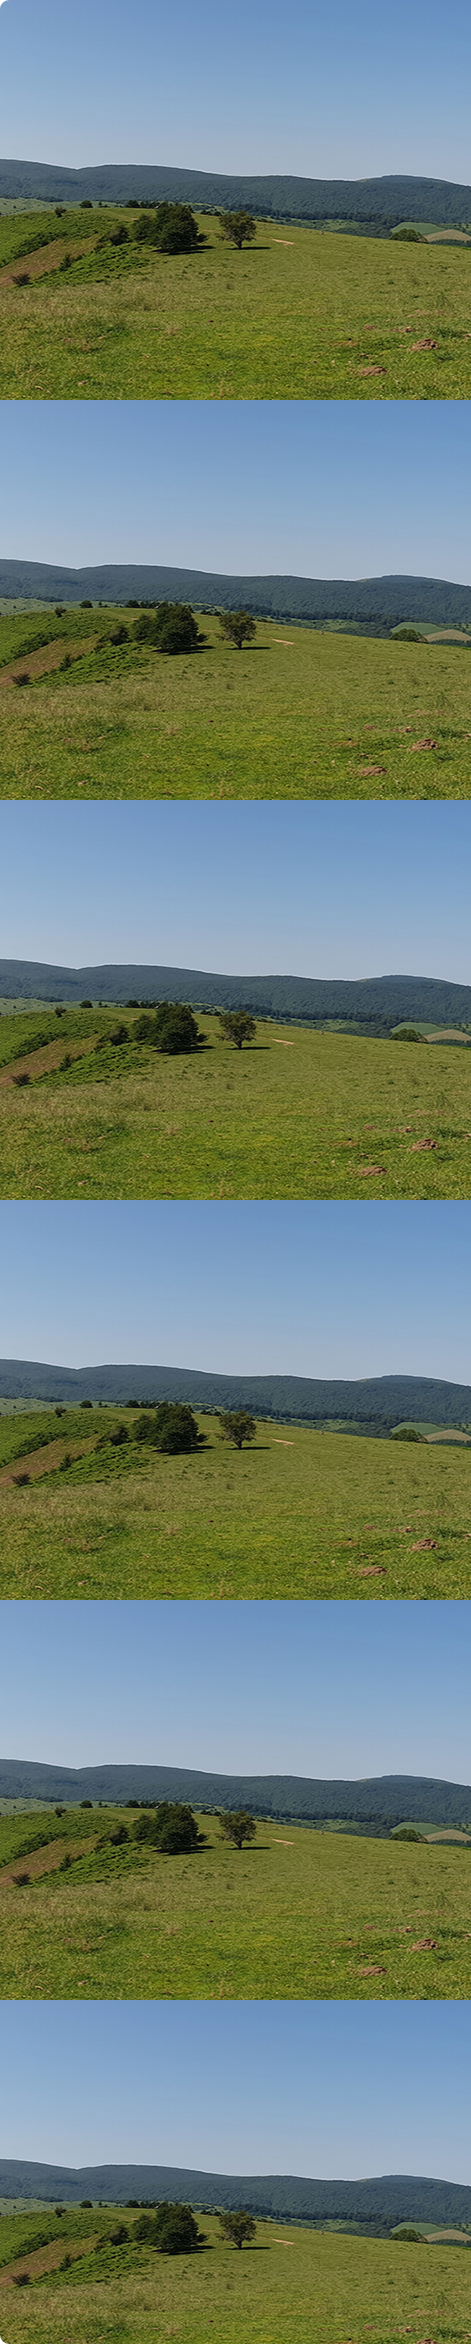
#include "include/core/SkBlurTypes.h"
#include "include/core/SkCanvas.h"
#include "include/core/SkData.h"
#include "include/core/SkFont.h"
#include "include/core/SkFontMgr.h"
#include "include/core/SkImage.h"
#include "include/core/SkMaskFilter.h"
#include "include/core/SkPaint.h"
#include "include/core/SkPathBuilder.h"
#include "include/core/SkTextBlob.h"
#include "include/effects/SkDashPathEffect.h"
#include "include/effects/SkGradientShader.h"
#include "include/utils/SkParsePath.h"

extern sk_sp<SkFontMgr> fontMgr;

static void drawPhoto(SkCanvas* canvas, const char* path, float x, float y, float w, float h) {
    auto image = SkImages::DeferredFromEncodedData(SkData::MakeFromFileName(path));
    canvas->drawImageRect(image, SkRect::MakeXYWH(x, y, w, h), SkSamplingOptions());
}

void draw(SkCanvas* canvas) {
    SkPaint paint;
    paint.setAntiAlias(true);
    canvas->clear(0xFFFFFFFF);
    drawPhoto(canvas, "assets/img1.png", 0, 0, 471, 2344);
}
